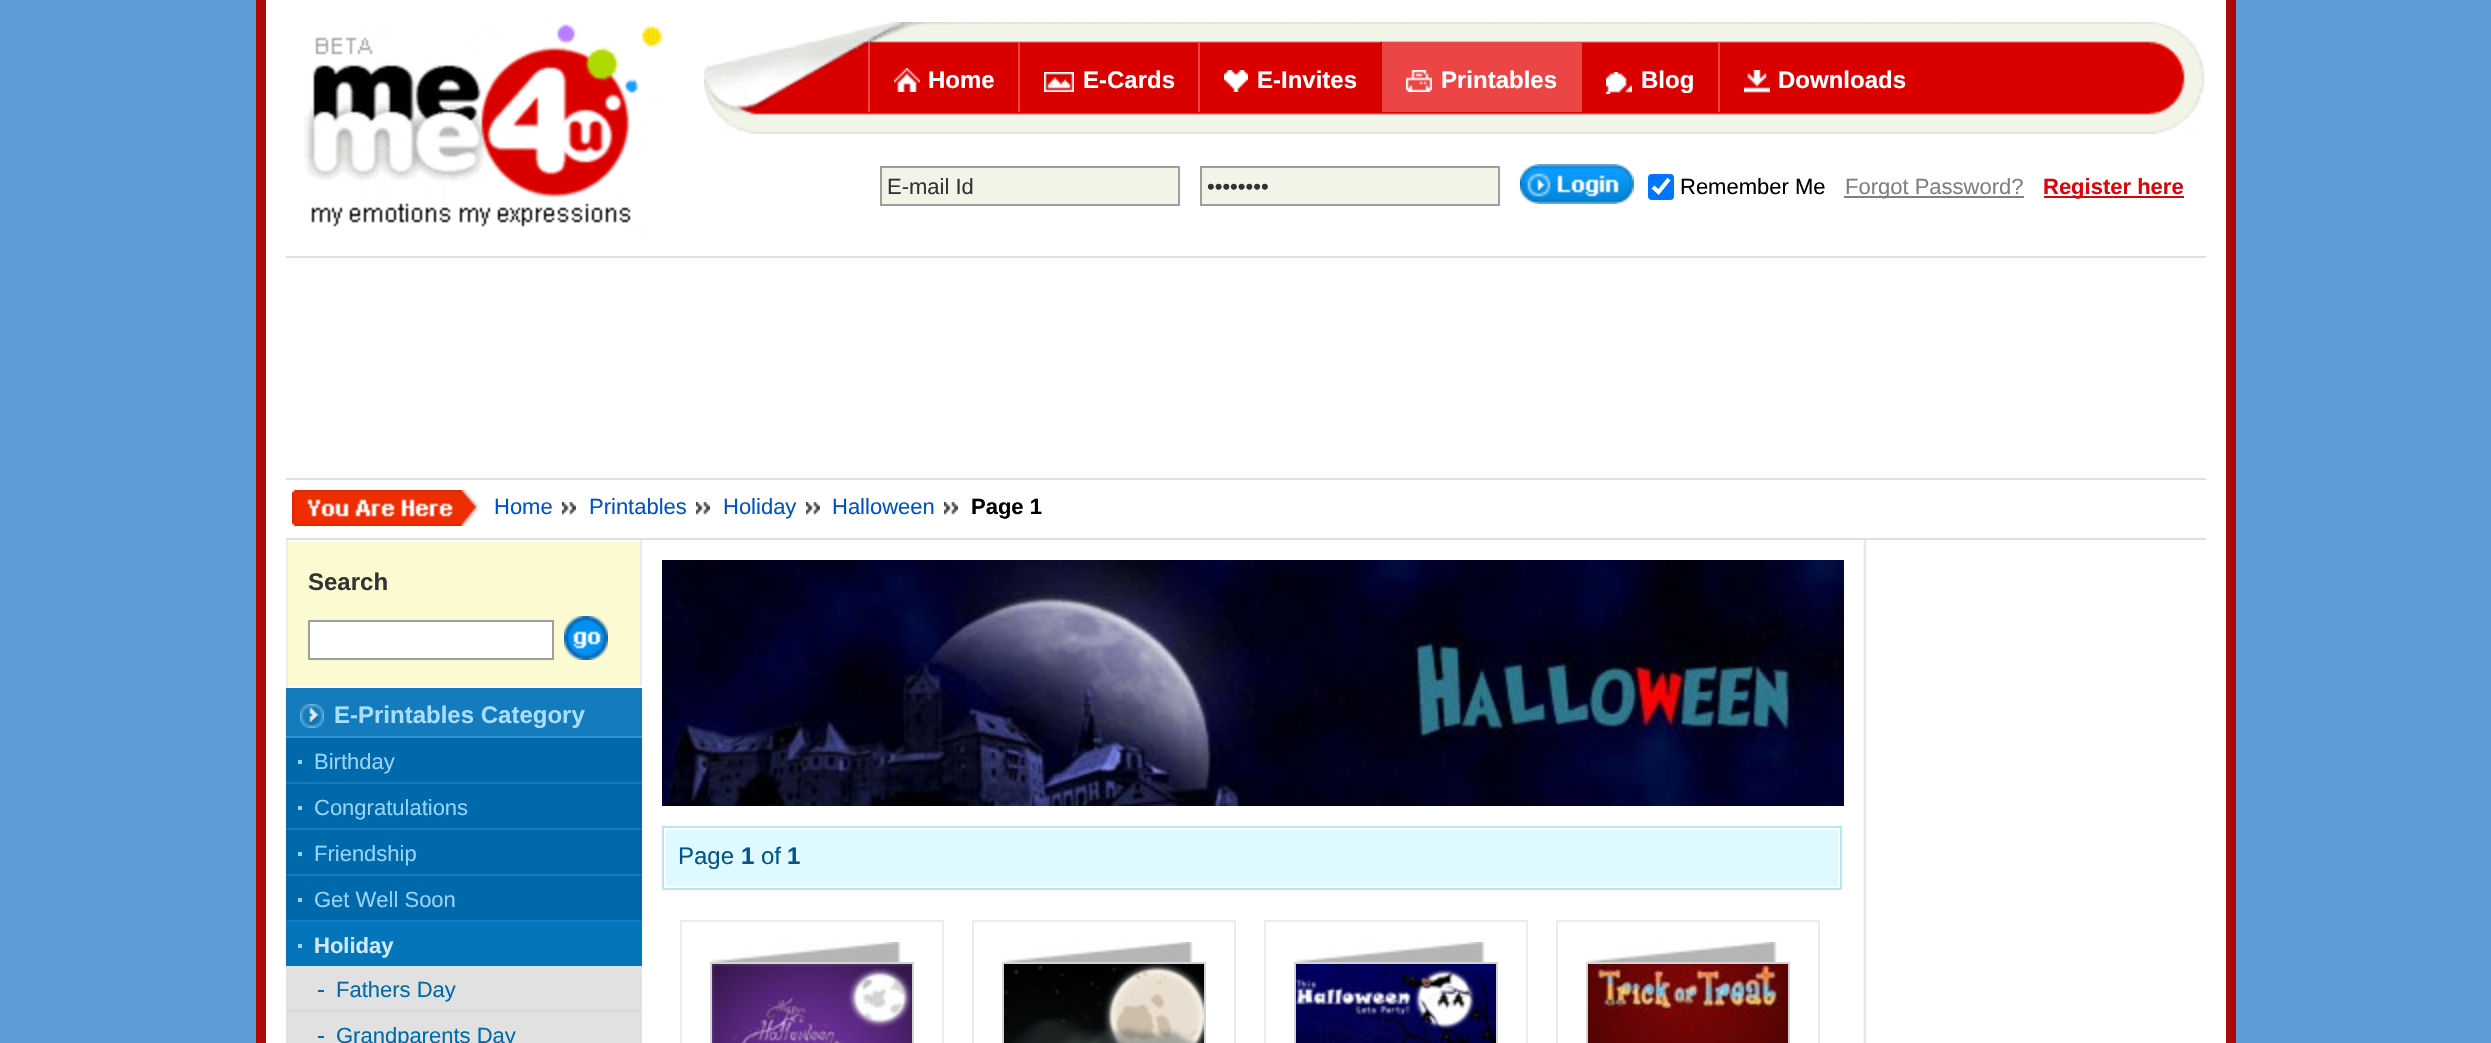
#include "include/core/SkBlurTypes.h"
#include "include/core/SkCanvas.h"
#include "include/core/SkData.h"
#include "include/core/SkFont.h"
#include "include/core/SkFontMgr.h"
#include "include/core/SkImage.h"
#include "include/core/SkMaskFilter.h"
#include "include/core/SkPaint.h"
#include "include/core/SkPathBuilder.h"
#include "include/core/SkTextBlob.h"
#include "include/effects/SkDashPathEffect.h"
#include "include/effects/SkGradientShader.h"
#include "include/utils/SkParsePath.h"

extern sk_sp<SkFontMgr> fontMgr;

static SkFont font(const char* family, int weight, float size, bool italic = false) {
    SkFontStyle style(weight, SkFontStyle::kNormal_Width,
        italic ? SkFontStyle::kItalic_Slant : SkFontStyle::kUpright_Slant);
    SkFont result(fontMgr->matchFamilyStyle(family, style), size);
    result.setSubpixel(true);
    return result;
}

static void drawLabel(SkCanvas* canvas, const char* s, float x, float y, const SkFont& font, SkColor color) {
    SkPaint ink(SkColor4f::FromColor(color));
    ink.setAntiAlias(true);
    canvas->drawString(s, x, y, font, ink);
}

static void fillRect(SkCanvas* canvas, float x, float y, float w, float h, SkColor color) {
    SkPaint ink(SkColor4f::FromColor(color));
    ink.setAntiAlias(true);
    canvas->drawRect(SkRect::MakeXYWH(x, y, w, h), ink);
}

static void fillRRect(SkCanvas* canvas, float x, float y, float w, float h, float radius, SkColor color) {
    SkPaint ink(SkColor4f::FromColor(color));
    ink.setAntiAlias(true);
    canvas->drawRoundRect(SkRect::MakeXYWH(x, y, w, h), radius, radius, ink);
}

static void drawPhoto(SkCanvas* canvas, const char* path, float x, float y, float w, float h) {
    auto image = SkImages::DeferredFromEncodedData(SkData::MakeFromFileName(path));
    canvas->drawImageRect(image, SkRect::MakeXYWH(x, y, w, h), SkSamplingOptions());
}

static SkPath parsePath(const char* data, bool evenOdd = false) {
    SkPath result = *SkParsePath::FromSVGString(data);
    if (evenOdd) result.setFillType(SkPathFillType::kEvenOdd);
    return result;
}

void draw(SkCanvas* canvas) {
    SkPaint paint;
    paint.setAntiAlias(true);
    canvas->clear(0xFF5E9CD7);
    fillRect(canvas, 266, 0, 1960, 1043, 0xFFFFFFFF);
    fillRect(canvas, 2226, 0, 10, 1043, 0xFFAC090A);
    fillRect(canvas, 256, 0, 10, 1043, 0xFFAC090A);
    drawPhoto(canvas, "assets/img1.png", 304, 23, 360, 211);
    drawPhoto(canvas, "assets/img2.png", 704, 22, 1501, 112);
    fillRect(canvas, 868, 42, 2, 70, 0xFFEB4545);
    drawPhoto(canvas, "assets/img3.png", 894, 68, 26, 24);
    SkFont font1 = font("Liberation Sans", 700, 24);
    drawLabel(canvas, "Home", 928, 88, font1, 0xFFFFFFFF);
    fillRect(canvas, 1018, 42, 2, 70, 0xFFEB4545);
    drawPhoto(canvas, "assets/img4.png", 1044, 72, 30, 20);
    drawLabel(canvas, "E-Cards", 1083, 88, font1, 0xFFFFFFFF);
    fillRect(canvas, 1198, 42, 2, 70, 0xFFEB4545);
    drawPhoto(canvas, "assets/img5.png", 1224, 70, 24, 22);
    drawLabel(canvas, "E-Invites", 1257, 88, font1, 0xFFFFFFFF);
    fillRect(canvas, 1382, 42, 200, 70, 0xFFEB4545);
    fillRect(canvas, 1380, 42, 2, 70, 0xFFCE0000);
    drawPhoto(canvas, "assets/img6.png", 1406, 70, 26, 22);
    drawLabel(canvas, "Printables", 1441, 88, font1, 0xFFFFFFFF);
    drawPhoto(canvas, "assets/img7.png", 1606, 72, 26, 22);
    drawLabel(canvas, "Blog", 1641, 88, font1, 0xFFFFFFFF);
    fillRect(canvas, 1718, 42, 2, 70, 0xFFEB4545);
    drawPhoto(canvas, "assets/img8.png", 1744, 70, 26, 23);
    drawLabel(canvas, "Downloads", 1778, 88, font1, 0xFFFFFFFF);
    paint.setColor(0xFFF3F4E8);
    canvas->drawRect(SkRect::MakeXYWH(881, 167, 298, 38), paint);
    paint.setStroke(true);
    paint.setStrokeWidth(2);
    paint.setColor(0xFF9E9E9E);
    canvas->drawRect(SkRect::MakeXYWH(881, 167, 298, 38), paint);
    SkFont font2 = font("Liberation Sans", 400, 22);
    drawLabel(canvas, "E-mail Id", 887, 194, font2, 0xFF333333);
    paint.setStroke(false);
    paint.setColor(0xFFF3F4E8);
    canvas->drawRect(SkRect::MakeXYWH(1201, 167, 298, 38), paint);
    paint.setStroke(true);
    paint.setColor(0xFF9E9E9E);
    canvas->drawRect(SkRect::MakeXYWH(1201, 167, 298, 38), paint);
    drawLabel(canvas, "••••••••", 1207, 194, font2, 0xFF333333);
    drawPhoto(canvas, "assets/img9.png", 1520, 164, 114, 40);
    fillRRect(canvas, 1648, 174, 26, 26, 4, 0xFF0075FF);
    paint.setStrokeWidth(4.2f);
    paint.setColor(0xFFFFFFFF);
    canvas->drawPath(parsePath("M1653 187L1658.5 192L1669 179"), paint);
    drawLabel(canvas, "Remember Me", 1680, 194, font2, 0xFF000000);
    fillRect(canvas, 1844, 196, 180, 2, 0xFF7F7F7F);
    drawLabel(canvas, "Forgot Password?", 1845, 194, font2, 0xFF7F7F7F);
    fillRect(canvas, 2044, 196, 140, 2, 0xFFD8060A);
    SkFont font3 = font("Liberation Sans", 700, 22);
    drawLabel(canvas, "Register here", 2043, 194, font3, 0xFFD8060A);
    fillRect(canvas, 286, 256, 1920, 2, 0xFFDFDFDF);
    fillRect(canvas, 286, 478, 1920, 2, 0xFFDFDFDF);
    fillRect(canvas, 286, 538, 1920, 2, 0xFFDFDFDF);
    drawPhoto(canvas, "assets/img10.png", 292, 490, 189, 36);
    drawLabel(canvas, "Home", 494, 514, font2, 0xFF0054C2);
    drawPhoto(canvas, "assets/img11.png", 562, 502, 14, 13);
    drawLabel(canvas, "Printables", 589, 514, font2, 0xFF0054C2);
    drawPhoto(canvas, "assets/img11.png", 696, 502, 14, 13);
    drawLabel(canvas, "Holiday", 723, 514, font2, 0xFF0054C2);
    drawPhoto(canvas, "assets/img11.png", 806, 502, 14, 13);
    drawLabel(canvas, "Halloween", 832, 514, font2, 0xFF0054C2);
    drawPhoto(canvas, "assets/img11.png", 944, 502, 14, 13);
    drawLabel(canvas, "Page 1", 971, 514, font3, 0xFF000000);
    drawPhoto(canvas, "assets/img12.png", 642, 540, 1225, 503);
    fillRect(canvas, 288, 542, 352, 144, 0xFFFCFAD1);
    fillRect(canvas, 640, 540, 2, 148, 0xFFECECEC);
    fillRect(canvas, 640, 686, 2, 2, 0xFFFFFFFF);
    fillRect(canvas, 286, 540, 2, 148, 0xFFECECEC);
    drawLabel(canvas, "Search", 308, 590, font1, 0xFF333333);
    paint.setStroke(false);
    canvas->drawRect(SkRect::MakeXYWH(309, 621, 244, 38), paint);
    paint.setStroke(true);
    paint.setStrokeWidth(2);
    paint.setColor(0xFF9E9E9E);
    canvas->drawRect(SkRect::MakeXYWH(309, 621, 244, 38), paint);
    drawPhoto(canvas, "assets/img13.png", 564, 616, 44, 44);
    fillRect(canvas, 286, 688, 356, 48, 0xFF147BBC);
    fillRect(canvas, 286, 736, 356, 2, 0xFF2796CC);
    drawPhoto(canvas, "assets/img14.png", 300, 704, 24, 24);
    drawLabel(canvas, "E-Printables Category", 334, 723, font1, 0xFFA7DEFF);
    fillRect(canvas, 286, 782, 356, 2, 0xFF147BBC);
    fillRect(canvas, 286, 738, 356, 44, 0xFF0069AB);
    fillRect(canvas, 298, 760, 4, 4, 0xFF95D3F9);
    drawLabel(canvas, "Birthday", 314, 769, font2, 0xFF95D3F9);
    fillRect(canvas, 286, 828, 356, 2, 0xFF147BBC);
    fillRect(canvas, 286, 784, 356, 44, 0xFF0069AB);
    fillRect(canvas, 298, 806, 4, 4, 0xFF95D3F9);
    drawLabel(canvas, "Congratulations", 314, 815, font2, 0xFF95D3F9);
    fillRect(canvas, 286, 874, 356, 2, 0xFF147BBC);
    fillRect(canvas, 286, 830, 356, 44, 0xFF0069AB);
    fillRect(canvas, 298, 852, 4, 4, 0xFF95D3F9);
    drawLabel(canvas, "Friendship", 314, 861, font2, 0xFF95D3F9);
    fillRect(canvas, 286, 920, 356, 2, 0xFF147BBC);
    fillRect(canvas, 286, 876, 356, 44, 0xFF0069AB);
    fillRect(canvas, 298, 898, 4, 4, 0xFF95D3F9);
    drawLabel(canvas, "Get Well Soon", 314, 907, font2, 0xFF95D3F9);
    fillRect(canvas, 286, 922, 356, 44, 0xFF0575BB);
    fillRect(canvas, 298, 944, 4, 4, 0xFF95D3F9);
    drawLabel(canvas, "Holiday", 314, 953, font3, 0xFFD0E8F6);
    fillRect(canvas, 286, 1010, 356, 2, 0xFFD8D8D8);
    fillRect(canvas, 286, 966, 356, 44, 0xFFE1E1E1);
    fillRect(canvas, 318, 990, 6, 2, 0xFF0069AB);
    drawLabel(canvas, "Fathers Day", 336, 997, font2, 0xFF0069AB);
    fillRect(canvas, 286, 1012, 356, 31, 0xFFE1E1E1);
    fillRect(canvas, 318, 1036, 6, 2, 0xFF0069AB);
    drawLabel(canvas, "Grandparents Day", 336, 1043, font2, 0xFF0069AB);
    drawPhoto(canvas, "assets/img15.png", 662, 560, 1182, 246);
    paint.setColor(0xFFB6E7F2);
    canvas->drawRect(SkRect::MakeXYWH(663, 827, 1178, 62), paint);
    fillRect(canvas, 666, 830, 1172, 56, 0xFFDEF9FF);
    SkFont font4 = font("Liberation Sans", 400, 24);
    drawLabel(canvas, "Page", 678, 864, font4, 0xFF02548C);
    drawLabel(canvas, "1", 741, 864, font1, 0xFF02548C);
    drawLabel(canvas, "of", 761, 864, font4, 0xFF02548C);
    drawLabel(canvas, "1", 787, 864, font1, 0xFF02548C);
    paint.setColor(0xFFECECEC);
    canvas->drawRect(SkRect::MakeXYWH(681, 921, 262, 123), paint);
    drawPhoto(canvas, "assets/img16.png", 712, 942, 189, 20);
    paint.setColor(0xFFD3D3D3);
    canvas->drawRect(SkRect::MakeXYWH(711, 963, 202, 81), paint);
    drawPhoto(canvas, "assets/img17.png", 712, 964, 200, 79);
    paint.setColor(0xFFECECEC);
    canvas->drawRect(SkRect::MakeXYWH(973, 921, 262, 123), paint);
    drawPhoto(canvas, "assets/img16.png", 1004, 942, 189, 20);
    paint.setColor(0xFFD3D3D3);
    canvas->drawRect(SkRect::MakeXYWH(1003, 963, 202, 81), paint);
    drawPhoto(canvas, "assets/img18.png", 1004, 964, 200, 79);
    paint.setColor(0xFFECECEC);
    canvas->drawRect(SkRect::MakeXYWH(1265, 921, 262, 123), paint);
    drawPhoto(canvas, "assets/img16.png", 1296, 942, 189, 20);
    paint.setColor(0xFFD3D3D3);
    canvas->drawRect(SkRect::MakeXYWH(1295, 963, 202, 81), paint);
    drawPhoto(canvas, "assets/img19.png", 1296, 964, 200, 79);
    paint.setColor(0xFFECECEC);
    canvas->drawRect(SkRect::MakeXYWH(1557, 921, 262, 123), paint);
    drawPhoto(canvas, "assets/img16.png", 1588, 942, 189, 20);
    paint.setColor(0xFFD3D3D3);
    canvas->drawRect(SkRect::MakeXYWH(1587, 963, 202, 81), paint);
    drawPhoto(canvas, "assets/img20.png", 1588, 964, 200, 79);
}
